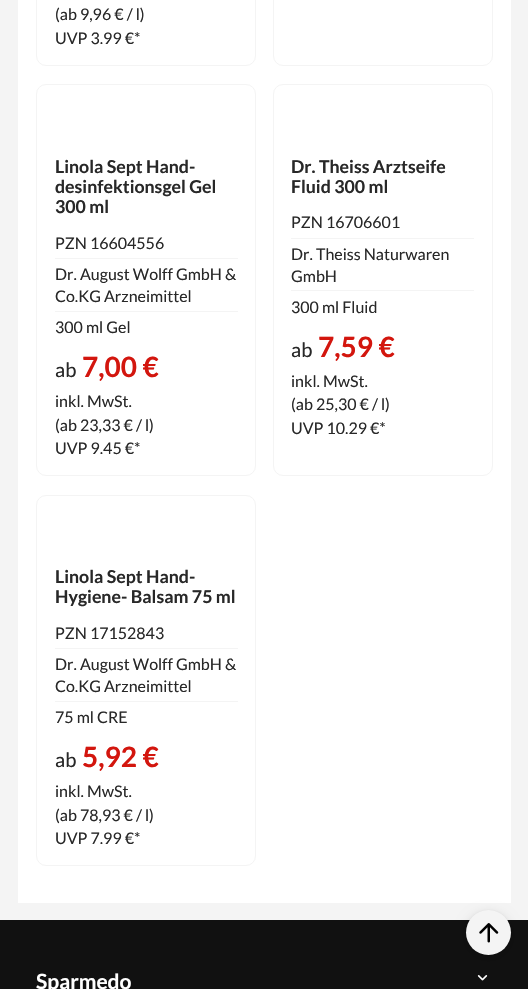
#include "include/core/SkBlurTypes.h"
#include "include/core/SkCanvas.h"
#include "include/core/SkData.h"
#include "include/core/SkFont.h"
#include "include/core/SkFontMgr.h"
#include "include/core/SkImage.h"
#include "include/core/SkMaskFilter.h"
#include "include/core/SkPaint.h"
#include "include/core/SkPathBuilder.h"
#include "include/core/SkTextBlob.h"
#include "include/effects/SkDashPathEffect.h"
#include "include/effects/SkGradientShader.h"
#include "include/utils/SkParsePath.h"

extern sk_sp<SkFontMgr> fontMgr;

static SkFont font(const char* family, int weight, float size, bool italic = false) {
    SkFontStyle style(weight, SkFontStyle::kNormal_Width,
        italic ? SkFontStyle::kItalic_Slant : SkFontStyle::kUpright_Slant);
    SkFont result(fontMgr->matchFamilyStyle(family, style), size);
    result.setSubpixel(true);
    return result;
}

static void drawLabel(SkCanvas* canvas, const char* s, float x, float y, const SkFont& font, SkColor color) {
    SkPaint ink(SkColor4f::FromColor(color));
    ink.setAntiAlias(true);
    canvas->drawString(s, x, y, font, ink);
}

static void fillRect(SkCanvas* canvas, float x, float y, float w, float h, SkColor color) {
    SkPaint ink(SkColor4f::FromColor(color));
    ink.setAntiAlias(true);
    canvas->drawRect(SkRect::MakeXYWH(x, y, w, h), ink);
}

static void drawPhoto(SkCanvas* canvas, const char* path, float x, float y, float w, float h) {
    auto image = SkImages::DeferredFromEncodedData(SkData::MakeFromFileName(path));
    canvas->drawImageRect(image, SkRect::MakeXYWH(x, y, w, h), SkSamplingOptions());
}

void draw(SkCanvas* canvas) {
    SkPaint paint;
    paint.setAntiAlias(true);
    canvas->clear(0xFFF4F4F4);
    fillRect(canvas, 18, 0, 493, 903, 0xFFFFFFFF);
    paint.setStroke(true);
    paint.setStrokeWidth(1);
    paint.setColor(0xFFF4F4F4);
    canvas->drawRoundRect(SkRect::MakeXYWH(36.5f, -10.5f, 219, 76), 9.5f, 9.5f, paint);
    SkFont font1 = font("Lato", 400, 16);
    drawLabel(canvas, "(ab 9,96 € / l)", 55, 20, font1, 0xFF282828);
    drawLabel(canvas, "UVP 3.99 €*", 55, 44, font1, 0xFF282828);
    canvas->drawRoundRect(SkRect::MakeXYWH(273.5f, -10.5f, 219, 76), 9.5f, 9.5f, paint);
    canvas->drawRoundRect(SkRect::MakeXYWH(36.5f, 84.5f, 219, 391), 9.5f, 9.5f, paint);
    SkFont font2 = font("Lato", 700, 17.75f);
    drawLabel(canvas, "Linola Sept Hand-", 55, 173, font2, 0xFF282828);
    drawLabel(canvas, "desinfektionsgel Gel", 55, 193, font2, 0xFF282828);
    drawLabel(canvas, "300 ml", 55, 213, font2, 0xFF282828);
    fillRect(canvas, 55, 258, 183, 1, 0xFFF4F4F4);
    drawLabel(canvas, "PZN 16604556", 55, 249, font1, 0xFF282828);
    fillRect(canvas, 55, 311, 183, 1, 0xFFF4F4F4);
    drawLabel(canvas, "Dr. August Wolff GmbH &", 55, 280, font1, 0xFF282828);
    drawLabel(canvas, "Co.KG Arzneimittel", 55, 302, font1, 0xFF282828);
    drawLabel(canvas, "300 ml Gel", 55, 333, font1, 0xFF282828);
    SkFont font3 = font("Lato", 400, 20);
    drawLabel(canvas, "ab", 55, 377, font3, 0xFF282828);
    SkFont font4 = font("Lato", 700, 28);
    drawLabel(canvas, "7,00 €", 82, 377, font4, 0xFFD3160E);
    drawLabel(canvas, "inkl. MwSt.", 55, 407, font1, 0xFF282828);
    drawLabel(canvas, "(ab 23,33 € / l)", 55, 431, font1, 0xFF282828);
    drawLabel(canvas, "UVP 9.45 €*", 55, 454, font1, 0xFF282828);
    canvas->drawRoundRect(SkRect::MakeXYWH(273.5f, 84.5f, 219, 391), 9.5f, 9.5f, paint);
    drawLabel(canvas, "Dr. Theiss Arztseife", 291, 173, font2, 0xFF282828);
    drawLabel(canvas, "Fluid 300 ml", 291, 193, font2, 0xFF282828);
    fillRect(canvas, 291, 238, 183, 1, 0xFFF4F4F4);
    drawLabel(canvas, "PZN 16706601", 291, 228, font1, 0xFF282828);
    fillRect(canvas, 291, 290, 183, 1, 0xFFF4F4F4);
    drawLabel(canvas, "Dr. Theiss Naturwaren", 291, 260, font1, 0xFF282828);
    drawLabel(canvas, "GmbH", 291, 282, font1, 0xFF282828);
    drawLabel(canvas, "300 ml Fluid", 291, 313, font1, 0xFF282828);
    drawLabel(canvas, "ab", 291, 357, font3, 0xFF282828);
    drawLabel(canvas, "7,59 €", 318, 357, font4, 0xFFD3160E);
    drawLabel(canvas, "inkl. MwSt.", 291, 387, font1, 0xFF282828);
    drawLabel(canvas, "(ab 25,30 € / l)", 291, 410, font1, 0xFF282828);
    drawLabel(canvas, "UVP 10.29 €*", 291, 434, font1, 0xFF282828);
    canvas->drawRoundRect(SkRect::MakeXYWH(36.5f, 495.5f, 219, 370), 9.5f, 9.5f, paint);
    drawLabel(canvas, "Linola Sept Hand-", 55, 583, font2, 0xFF282828);
    drawLabel(canvas, "Hygiene- Balsam 75 ml", 55, 603, font2, 0xFF282828);
    fillRect(canvas, 55, 648, 183, 1, 0xFFF4F4F4);
    drawLabel(canvas, "PZN 17152843", 55, 639, font1, 0xFF282828);
    fillRect(canvas, 55, 701, 183, 1, 0xFFF4F4F4);
    drawLabel(canvas, "Dr. August Wolff GmbH &", 55, 670, font1, 0xFF282828);
    drawLabel(canvas, "Co.KG Arzneimittel", 55, 692, font1, 0xFF282828);
    drawLabel(canvas, "75 ml CRE", 55, 723, font1, 0xFF282828);
    drawLabel(canvas, "ab", 55, 767, font3, 0xFF282828);
    drawLabel(canvas, "5,92 €", 82, 767, font4, 0xFFD3160E);
    drawLabel(canvas, "inkl. MwSt.", 55, 797, font1, 0xFF282828);
    drawLabel(canvas, "(ab 78,93 € / l)", 55, 821, font1, 0xFF282828);
    drawLabel(canvas, "UVP 7.99 €*", 55, 844, font1, 0xFF282828);
    fillRect(canvas, 0, 920, 528, 69, 0xFF111111);
    drawPhoto(canvas, "assets/img2.png", 477, 975, 11, 6);
    paint.setStroke(false);
    paint.setColor(0x1F000000);
    paint.setMaskFilter(SkMaskFilter::MakeBlur(kNormal_SkBlurStyle, 6));
    canvas->drawRoundRect(SkRect::MakeXYWH(466, 913, 45, 45), 22.5f, 22.5f, paint);
    paint.setMaskFilter(nullptr);
    paint.setColor(0x29000000);
    paint.setMaskFilter(SkMaskFilter::MakeBlur(kNormal_SkBlurStyle, 1));
    canvas->drawRoundRect(SkRect::MakeXYWH(466, 911, 45, 45), 22.5f, 22.5f, paint);
    paint.setMaskFilter(nullptr);
    paint.setColor(0xFFF4F4F4);
    canvas->drawCircle(488.5f, 932.5f, 22.5f, paint);
    drawPhoto(canvas, "assets/img1.png", 479, 923, 20, 20);
    SkFont font5 = font("Lato", 700, 21);
    drawLabel(canvas, "Sparmedo", 36, 989, font5, 0xFFFFFFFF);
}
